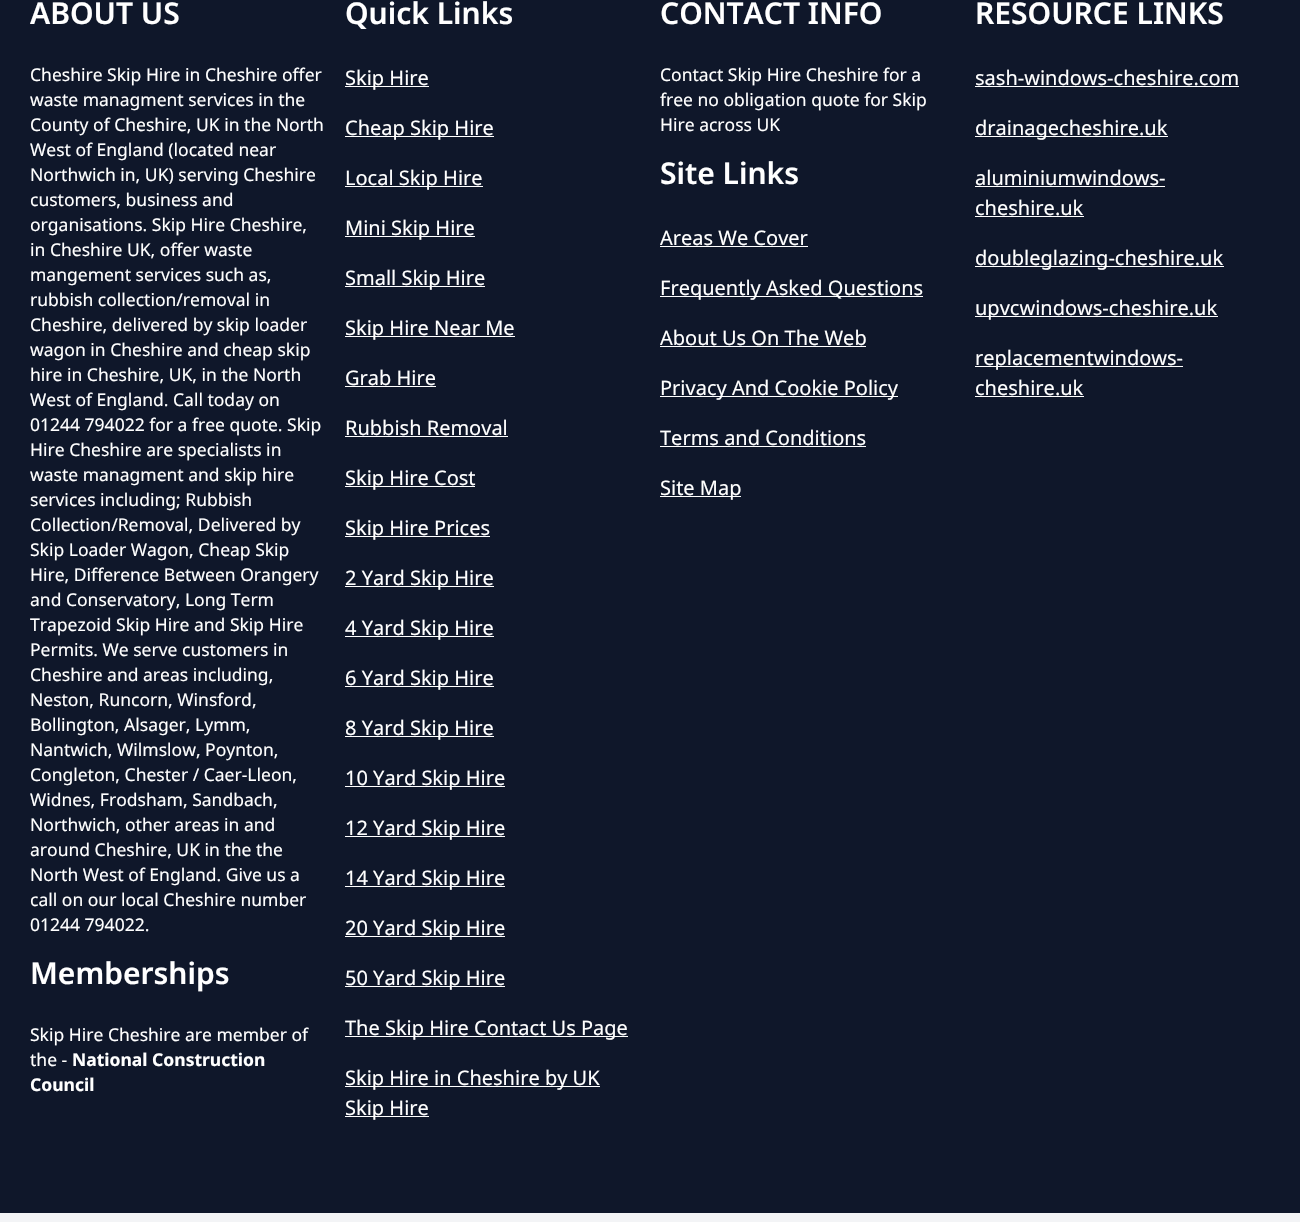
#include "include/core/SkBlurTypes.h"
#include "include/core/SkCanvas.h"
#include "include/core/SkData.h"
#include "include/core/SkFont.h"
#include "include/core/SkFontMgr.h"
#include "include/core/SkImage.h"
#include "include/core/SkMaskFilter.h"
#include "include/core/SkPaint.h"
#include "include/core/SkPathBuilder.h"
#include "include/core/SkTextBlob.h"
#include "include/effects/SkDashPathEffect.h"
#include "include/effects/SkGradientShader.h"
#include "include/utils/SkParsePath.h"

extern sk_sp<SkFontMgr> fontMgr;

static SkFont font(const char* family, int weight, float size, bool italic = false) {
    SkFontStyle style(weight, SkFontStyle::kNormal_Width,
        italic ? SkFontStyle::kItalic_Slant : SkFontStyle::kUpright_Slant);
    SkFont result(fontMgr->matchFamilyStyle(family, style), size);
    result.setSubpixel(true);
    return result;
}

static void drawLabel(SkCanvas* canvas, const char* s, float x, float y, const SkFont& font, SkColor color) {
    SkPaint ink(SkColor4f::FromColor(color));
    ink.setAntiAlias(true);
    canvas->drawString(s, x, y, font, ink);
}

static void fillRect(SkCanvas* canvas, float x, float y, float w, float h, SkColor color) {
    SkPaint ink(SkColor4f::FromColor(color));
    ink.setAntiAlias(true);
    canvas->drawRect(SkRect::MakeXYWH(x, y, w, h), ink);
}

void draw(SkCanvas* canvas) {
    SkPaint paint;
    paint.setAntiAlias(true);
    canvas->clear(0xFF0F172A);
    SkFont font1 = font("Noto Sans", 600, 30);
    drawLabel(canvas, "ABOUT US", 30, 24, font1, 0xFFFFFFFF);
    SkFont font2 = font("Noto Sans", 400, 17.5f);
    drawLabel(canvas, "Cheshire Skip Hire in Cheshire offer", 30, 81, font2, 0xFFFFFFFF);
    drawLabel(canvas, "waste managment services in the", 30, 106, font2, 0xFFFFFFFF);
    drawLabel(canvas, "County of Cheshire, UK in the North", 30, 131, font2, 0xFFFFFFFF);
    drawLabel(canvas, "West of England (located near", 30, 156, font2, 0xFFFFFFFF);
    drawLabel(canvas, "Northwich in, UK) serving Cheshire", 30, 181, font2, 0xFFFFFFFF);
    drawLabel(canvas, "customers, business and", 30, 206, font2, 0xFFFFFFFF);
    drawLabel(canvas, "organisations. Skip Hire Cheshire,", 30, 231, font2, 0xFFFFFFFF);
    drawLabel(canvas, "in Cheshire UK, offer waste", 30, 256, font2, 0xFFFFFFFF);
    drawLabel(canvas, "mangement services such as,", 30, 281, font2, 0xFFFFFFFF);
    drawLabel(canvas, "rubbish collection/removal in", 30, 306, font2, 0xFFFFFFFF);
    drawLabel(canvas, "Cheshire, delivered by skip loader", 30, 331, font2, 0xFFFFFFFF);
    drawLabel(canvas, "wagon in Cheshire and cheap skip", 30, 356, font2, 0xFFFFFFFF);
    drawLabel(canvas, "hire in Cheshire, UK, in the North", 30, 381, font2, 0xFFFFFFFF);
    drawLabel(canvas, "West of England. Call today on", 30, 406, font2, 0xFFFFFFFF);
    drawLabel(canvas, "01244 794022 for a free quote. Skip", 30, 431, font2, 0xFFFFFFFF);
    drawLabel(canvas, "Hire Cheshire are specialists in", 30, 456, font2, 0xFFFFFFFF);
    drawLabel(canvas, "waste managment and skip hire", 30, 481, font2, 0xFFFFFFFF);
    drawLabel(canvas, "services including; Rubbish", 30, 506, font2, 0xFFFFFFFF);
    drawLabel(canvas, "Collection/Removal, Delivered by", 30, 531, font2, 0xFFFFFFFF);
    drawLabel(canvas, "Skip Loader Wagon, Cheap Skip", 30, 556, font2, 0xFFFFFFFF);
    drawLabel(canvas, "Hire, Difference Between Orangery", 30, 581, font2, 0xFFFFFFFF);
    drawLabel(canvas, "and Conservatory, Long Term", 30, 606, font2, 0xFFFFFFFF);
    drawLabel(canvas, "Trapezoid Skip Hire and Skip Hire", 30, 631, font2, 0xFFFFFFFF);
    drawLabel(canvas, "Permits. We serve customers in", 30, 656, font2, 0xFFFFFFFF);
    drawLabel(canvas, "Cheshire and areas including,", 30, 681, font2, 0xFFFFFFFF);
    drawLabel(canvas, "Neston, Runcorn, Winsford,", 30, 706, font2, 0xFFFFFFFF);
    drawLabel(canvas, "Bollington, Alsager, Lymm,", 30, 731, font2, 0xFFFFFFFF);
    drawLabel(canvas, "Nantwich, Wilmslow, Poynton,", 30, 756, font2, 0xFFFFFFFF);
    drawLabel(canvas, "Congleton, Chester / Caer-Lleon,", 30, 781, font2, 0xFFFFFFFF);
    drawLabel(canvas, "Widnes, Frodsham, Sandbach,", 30, 806, font2, 0xFFFFFFFF);
    drawLabel(canvas, "Northwich, other areas in and", 30, 831, font2, 0xFFFFFFFF);
    drawLabel(canvas, "around Cheshire, UK in the the", 30, 856, font2, 0xFFFFFFFF);
    drawLabel(canvas, "North West of England. Give us a", 30, 881, font2, 0xFFFFFFFF);
    drawLabel(canvas, "call on our local Cheshire number", 30, 906, font2, 0xFFFFFFFF);
    drawLabel(canvas, "01244 794022.", 30, 931, font2, 0xFFFFFFFF);
    drawLabel(canvas, "Memberships", 30, 984, font1, 0xFFFFFFFF);
    drawLabel(canvas, "Skip Hire Cheshire are member of", 30, 1041, font2, 0xFFFFFFFF);
    drawLabel(canvas, "the -", 30, 1066, font2, 0xFFFFFFFF);
    SkFont font3 = font("Noto Sans", 700, 17.5f);
    drawLabel(canvas, "National Construction", 72, 1066, font3, 0xFFFFFFFF);
    drawLabel(canvas, "Council", 30, 1091, font3, 0xFFFFFFFF);
    drawLabel(canvas, "Quick Links", 345, 24, font1, 0xFFFFFFFF);
    fillRect(canvas, 345, 86, 84, 1, 0xFFFFFFFF);
    SkFont font4 = font("Noto Sans", 400, 20);
    drawLabel(canvas, "Skip Hire", 345, 85, font4, 0xFFFFFFFF);
    fillRect(canvas, 345, 136, 149, 1, 0xFFFFFFFF);
    drawLabel(canvas, "Cheap Skip Hire", 345, 135, font4, 0xFFFFFFFF);
    fillRect(canvas, 345, 186, 138, 1, 0xFFFFFFFF);
    drawLabel(canvas, "Local Skip Hire", 345, 185, font4, 0xFFFFFFFF);
    fillRect(canvas, 345, 236, 130, 1, 0xFFFFFFFF);
    drawLabel(canvas, "Mini Skip Hire", 345, 235, font4, 0xFFFFFFFF);
    fillRect(canvas, 345, 286, 140, 1, 0xFFFFFFFF);
    drawLabel(canvas, "Small Skip Hire", 345, 285, font4, 0xFFFFFFFF);
    fillRect(canvas, 345, 336, 170, 1, 0xFFFFFFFF);
    drawLabel(canvas, "Skip Hire Near Me", 345, 335, font4, 0xFFFFFFFF);
    drawLabel(canvas, "Grab Hire", 345, 385, font4, 0xFFFFFFFF);
    fillRect(canvas, 345, 386, 91, 1, 0xFFFFFFFF);
    drawLabel(canvas, "Rubbish Removal", 345, 435, font4, 0xFFFFFFFF);
    fillRect(canvas, 345, 436, 163, 1, 0xFFFFFFFF);
    fillRect(canvas, 345, 486, 130, 1, 0xFFFFFFFF);
    drawLabel(canvas, "Skip Hire Cost", 345, 485, font4, 0xFFFFFFFF);
    fillRect(canvas, 345, 536, 145, 1, 0xFFFFFFFF);
    drawLabel(canvas, "Skip Hire Prices", 345, 535, font4, 0xFFFFFFFF);
    fillRect(canvas, 345, 586, 149, 1, 0xFFFFFFFF);
    drawLabel(canvas, "2 Yard Skip Hire", 345, 585, font4, 0xFFFFFFFF);
    fillRect(canvas, 345, 636, 149, 1, 0xFFFFFFFF);
    drawLabel(canvas, "4 Yard Skip Hire", 345, 635, font4, 0xFFFFFFFF);
    fillRect(canvas, 345, 686, 149, 1, 0xFFFFFFFF);
    drawLabel(canvas, "6 Yard Skip Hire", 345, 685, font4, 0xFFFFFFFF);
    fillRect(canvas, 345, 736, 149, 1, 0xFFFFFFFF);
    drawLabel(canvas, "8 Yard Skip Hire", 345, 735, font4, 0xFFFFFFFF);
    fillRect(canvas, 345, 786, 160, 1, 0xFFFFFFFF);
    drawLabel(canvas, "10 Yard Skip Hire", 345, 785, font4, 0xFFFFFFFF);
    fillRect(canvas, 345, 836, 160, 1, 0xFFFFFFFF);
    drawLabel(canvas, "12 Yard Skip Hire", 345, 835, font4, 0xFFFFFFFF);
    fillRect(canvas, 345, 886, 160, 1, 0xFFFFFFFF);
    drawLabel(canvas, "14 Yard Skip Hire", 345, 885, font4, 0xFFFFFFFF);
    fillRect(canvas, 345, 936, 160, 1, 0xFFFFFFFF);
    drawLabel(canvas, "20 Yard Skip Hire", 345, 935, font4, 0xFFFFFFFF);
    fillRect(canvas, 345, 986, 160, 1, 0xFFFFFFFF);
    drawLabel(canvas, "50 Yard Skip Hire", 345, 985, font4, 0xFFFFFFFF);
    fillRect(canvas, 345, 1036, 283, 1, 0xFFFFFFFF);
    drawLabel(canvas, "The Skip Hire Contact Us Page", 345, 1035, font4, 0xFFFFFFFF);
    fillRect(canvas, 345, 1086, 255, 1, 0xFFFFFFFF);
    drawLabel(canvas, "Skip Hire in Cheshire by UK", 345, 1085, font4, 0xFFFFFFFF);
    fillRect(canvas, 345, 1116, 84, 1, 0xFFFFFFFF);
    drawLabel(canvas, "Skip Hire", 345, 1115, font4, 0xFFFFFFFF);
    drawLabel(canvas, "CONTACT INFO", 660, 24, font1, 0xFFFFFFFF);
    drawLabel(canvas, "Contact Skip Hire Cheshire for a", 660, 81, font2, 0xFFFFFFFF);
    drawLabel(canvas, "free no obligation quote for Skip", 660, 106, font2, 0xFFFFFFFF);
    drawLabel(canvas, "Hire across UK", 660, 131, font2, 0xFFFFFFFF);
    drawLabel(canvas, "Site Links", 660, 184, font1, 0xFFFFFFFF);
    drawLabel(canvas, "Areas We Cover", 660, 245, font4, 0xFFFFFFFF);
    fillRect(canvas, 660, 246, 148, 1, 0xFFFFFFFF);
    fillRect(canvas, 660, 296, 263, 1, 0xFFFFFFFF);
    drawLabel(canvas, "Frequently Asked Questions", 660, 295, font4, 0xFFFFFFFF);
    drawLabel(canvas, "About Us On The Web", 660, 345, font4, 0xFFFFFFFF);
    fillRect(canvas, 660, 346, 206, 1, 0xFFFFFFFF);
    fillRect(canvas, 660, 396, 238, 1, 0xFFFFFFFF);
    drawLabel(canvas, "Privacy And Cookie Policy", 660, 395, font4, 0xFFFFFFFF);
    drawLabel(canvas, "Terms and Conditions", 660, 445, font4, 0xFFFFFFFF);
    fillRect(canvas, 660, 446, 206, 1, 0xFFFFFFFF);
    fillRect(canvas, 660, 496, 81, 1, 0xFFFFFFFF);
    drawLabel(canvas, "Site Map", 660, 495, font4, 0xFFFFFFFF);
    drawLabel(canvas, "RESOURCE LINKS", 975, 24, font1, 0xFFFFFFFF);
    drawLabel(canvas, "sash-windows-cheshire.com", 975, 85, font4, 0xFFFFFFFF);
    fillRect(canvas, 975, 86, 264, 1, 0xFFFFFFFF);
    fillRect(canvas, 975, 136, 193, 1, 0xFFFFFFFF);
    drawLabel(canvas, "drainagecheshire.uk", 975, 135, font4, 0xFFFFFFFF);
    drawLabel(canvas, "aluminiumwindows-", 975, 185, font4, 0xFFFFFFFF);
    fillRect(canvas, 975, 186, 190, 1, 0xFFFFFFFF);
    drawLabel(canvas, "cheshire.uk", 975, 215, font4, 0xFFFFFFFF);
    fillRect(canvas, 975, 216, 109, 1, 0xFFFFFFFF);
    fillRect(canvas, 975, 266, 249, 1, 0xFFFFFFFF);
    drawLabel(canvas, "doubleglazing-cheshire.uk", 975, 265, font4, 0xFFFFFFFF);
    fillRect(canvas, 975, 316, 243, 1, 0xFFFFFFFF);
    drawLabel(canvas, "upvcwindows-cheshire.uk", 975, 315, font4, 0xFFFFFFFF);
    fillRect(canvas, 975, 366, 208, 1, 0xFFFFFFFF);
    drawLabel(canvas, "replacementwindows-", 975, 365, font4, 0xFFFFFFFF);
    drawLabel(canvas, "cheshire.uk", 975, 395, font4, 0xFFFFFFFF);
    fillRect(canvas, 975, 396, 109, 1, 0xFFFFFFFF);
    fillRect(canvas, 0, 1213, 1300, 9, 0xFFF3F4F6);
}
